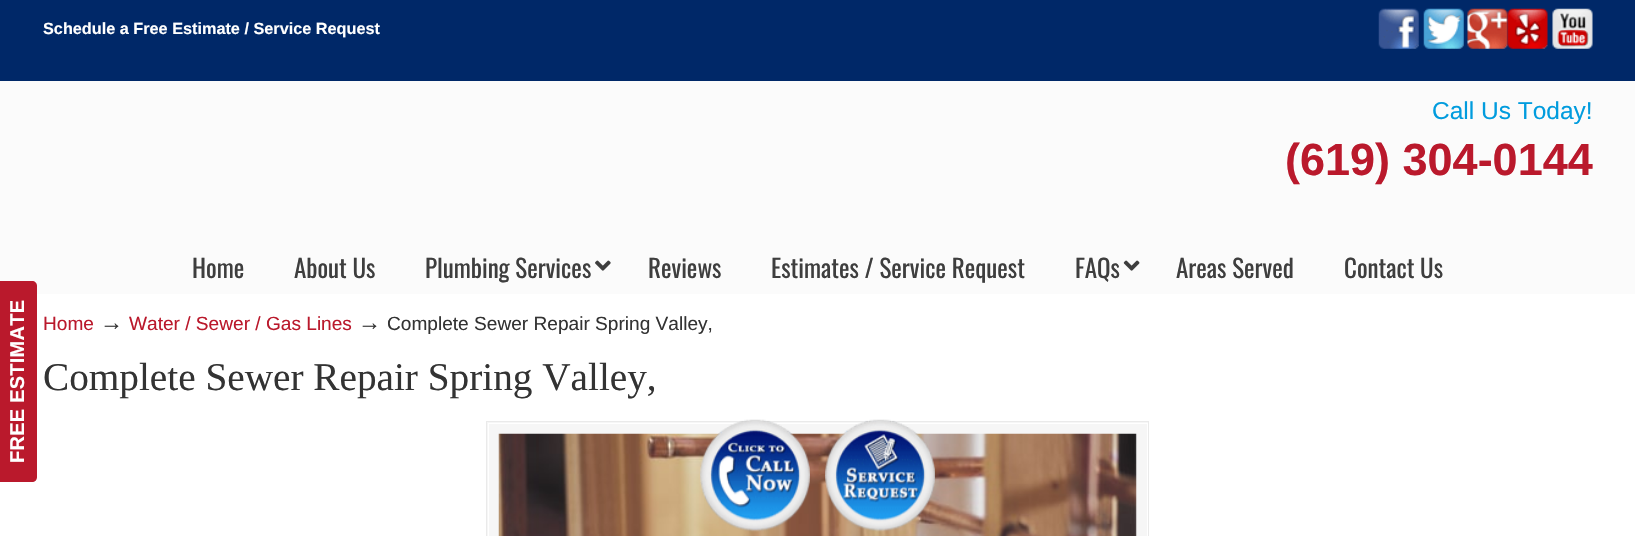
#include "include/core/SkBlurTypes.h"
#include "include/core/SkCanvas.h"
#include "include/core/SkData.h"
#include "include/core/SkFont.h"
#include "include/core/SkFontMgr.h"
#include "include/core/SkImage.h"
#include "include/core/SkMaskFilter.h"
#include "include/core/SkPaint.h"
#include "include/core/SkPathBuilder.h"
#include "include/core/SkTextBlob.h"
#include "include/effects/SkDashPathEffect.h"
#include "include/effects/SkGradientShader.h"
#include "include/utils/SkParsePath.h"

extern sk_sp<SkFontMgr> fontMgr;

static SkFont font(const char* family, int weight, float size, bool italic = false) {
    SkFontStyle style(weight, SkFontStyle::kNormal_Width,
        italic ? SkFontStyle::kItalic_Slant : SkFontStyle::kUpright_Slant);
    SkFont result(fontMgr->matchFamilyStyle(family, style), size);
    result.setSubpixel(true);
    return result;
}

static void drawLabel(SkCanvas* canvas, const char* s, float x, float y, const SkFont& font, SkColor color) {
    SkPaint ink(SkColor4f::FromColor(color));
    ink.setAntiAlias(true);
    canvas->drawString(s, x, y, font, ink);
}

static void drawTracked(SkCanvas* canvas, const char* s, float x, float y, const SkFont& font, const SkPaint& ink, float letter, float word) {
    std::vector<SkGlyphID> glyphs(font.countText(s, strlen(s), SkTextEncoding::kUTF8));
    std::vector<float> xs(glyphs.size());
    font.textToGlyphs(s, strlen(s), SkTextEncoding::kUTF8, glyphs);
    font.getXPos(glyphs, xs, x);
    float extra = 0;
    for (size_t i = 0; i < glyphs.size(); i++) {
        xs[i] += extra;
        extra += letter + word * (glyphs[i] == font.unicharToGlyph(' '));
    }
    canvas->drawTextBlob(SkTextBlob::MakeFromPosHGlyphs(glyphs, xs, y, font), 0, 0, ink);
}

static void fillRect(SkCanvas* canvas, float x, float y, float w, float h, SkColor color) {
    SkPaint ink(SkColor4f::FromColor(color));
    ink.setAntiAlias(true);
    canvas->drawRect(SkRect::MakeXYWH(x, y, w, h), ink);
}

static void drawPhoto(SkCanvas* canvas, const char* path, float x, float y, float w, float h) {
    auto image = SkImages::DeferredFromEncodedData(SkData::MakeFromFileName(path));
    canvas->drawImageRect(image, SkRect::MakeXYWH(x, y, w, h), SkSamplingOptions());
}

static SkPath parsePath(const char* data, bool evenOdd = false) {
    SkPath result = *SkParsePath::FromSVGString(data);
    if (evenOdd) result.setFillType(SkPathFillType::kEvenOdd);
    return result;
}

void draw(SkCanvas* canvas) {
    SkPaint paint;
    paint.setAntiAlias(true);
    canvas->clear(0xFFFBFBFB);
    fillRect(canvas, 0, 294, 1635, 242, 0xFFFFFFFF);
    paint.setColor(0xFFBA192C);
    canvas->drawPath(parsePath("M-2 482V281H32C35 281 37 283 37 286V477C37 480 35 482 32 482Z"), paint);
    SkFont font1 = font("Liberation Sans", 700, 20);
    paint.setColor(0xFFFFFFFF);
    canvas->save();
    canvas->rotate(-90, 24, 463);
    drawTracked(canvas, "FREE ESTIMATE", 24, 463, font1, paint, 0.25f, 0);
    canvas->restore();
    fillRect(canvas, 0, 0, 1635, 81, 0xFF002868);
    SkFont font2 = font("Liberation Sans", 700, 16.25f);
    drawLabel(canvas, "Schedule a Free Estimate / Service Request", 43, 34, font2, 0xFFFFFFFF);
    drawPhoto(canvas, "assets/img1.png", 1378, 8, 41, 41);
    drawPhoto(canvas, "assets/img2.png", 1423, 8, 41, 41);
    drawPhoto(canvas, "assets/img3.png", 1467, 8, 41, 41);
    drawPhoto(canvas, "assets/img4.png", 1507, 8, 41, 41);
    drawPhoto(canvas, "assets/img5.png", 1552, 8, 41, 41);
    SkFont font3 = font("Liberation Sans", 400, 24.5f);
    drawLabel(canvas, "Call Us Today!", 1432, 119, font3, 0xFF019CDE);
    SkFont font4 = font("Liberation Sans", 700, 45);
    drawLabel(canvas, "(619) 304-0144", 1285, 175, font4, 0xFFBA192C);
    SkFont font5 = font("Oswald", 400, 25);
    drawLabel(canvas, "Home", 192, 278, font5, 0xFF3E3E3E);
    drawLabel(canvas, "About Us", 294, 278, font5, 0xFF3E3E3E);
    drawLabel(canvas, "Plumbing Services", 425, 278, font5, 0xFF3E3E3E);
    drawPhoto(canvas, "assets/img6.png", 595, 260, 16, 11);
    drawLabel(canvas, "Reviews", 648, 278, font5, 0xFF3E3E3E);
    drawLabel(canvas, "Estimates / Service Request", 771, 278, font5, 0xFF3E3E3E);
    drawLabel(canvas, "FAQs", 1075, 278, font5, 0xFF3E3E3E);
    drawPhoto(canvas, "assets/img7.png", 1123, 260, 17, 11);
    drawLabel(canvas, "Areas Served", 1176, 278, font5, 0xFF3E3E3E);
    drawLabel(canvas, "Contact Us", 1344, 278, font5, 0xFF3E3E3E);
    SkFont font6 = font("Liberation Sans", 400, 19.1f);
    drawLabel(canvas, "Home", 43, 330, font6, 0xFFBA192C);
    SkFont font7 = font("Liberation Sans", 400, 23);
    drawLabel(canvas, "→", 100, 330, font7, 0xFF333333);
    drawLabel(canvas, "Water / Sewer / Gas Lines", 129, 330, font6, 0xFFBA192C);
    drawLabel(canvas, "→", 358, 330, font7, 0xFF333333);
    drawLabel(canvas, "Complete Sewer Repair Spring Valley,", 387, 330, font6, 0xFF333333);
    SkFont font8 = font("Liberation Serif", 400, 39.25f);
    drawLabel(canvas, "Complete Sewer Repair Spring Valley,", 43, 390, font8, 0xFF333333);
    paint.setColor(0xFFF6F6F6);
    canvas->drawRect(SkRect::MakeXYWH(486.5f, 421.5f, 662, 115), paint);
    paint.setStroke(true);
    paint.setStrokeWidth(1);
    paint.setColor(0xFFEAEAEA);
    canvas->drawRect(SkRect::MakeXYWH(486.5f, 421.5f, 662, 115), paint);
    paint.setColor(0xFFFFFFFF);
    canvas->drawRect(SkRect::MakeXYWH(488.5f, 423.5f, 659, 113), paint);
    drawPhoto(canvas, "assets/img8.png", 498, 433, 639, 103);
    drawPhoto(canvas, "assets/img9.png", 700, 419, 110, 113);
    drawPhoto(canvas, "assets/img10.png", 825, 419, 110, 113);
}
